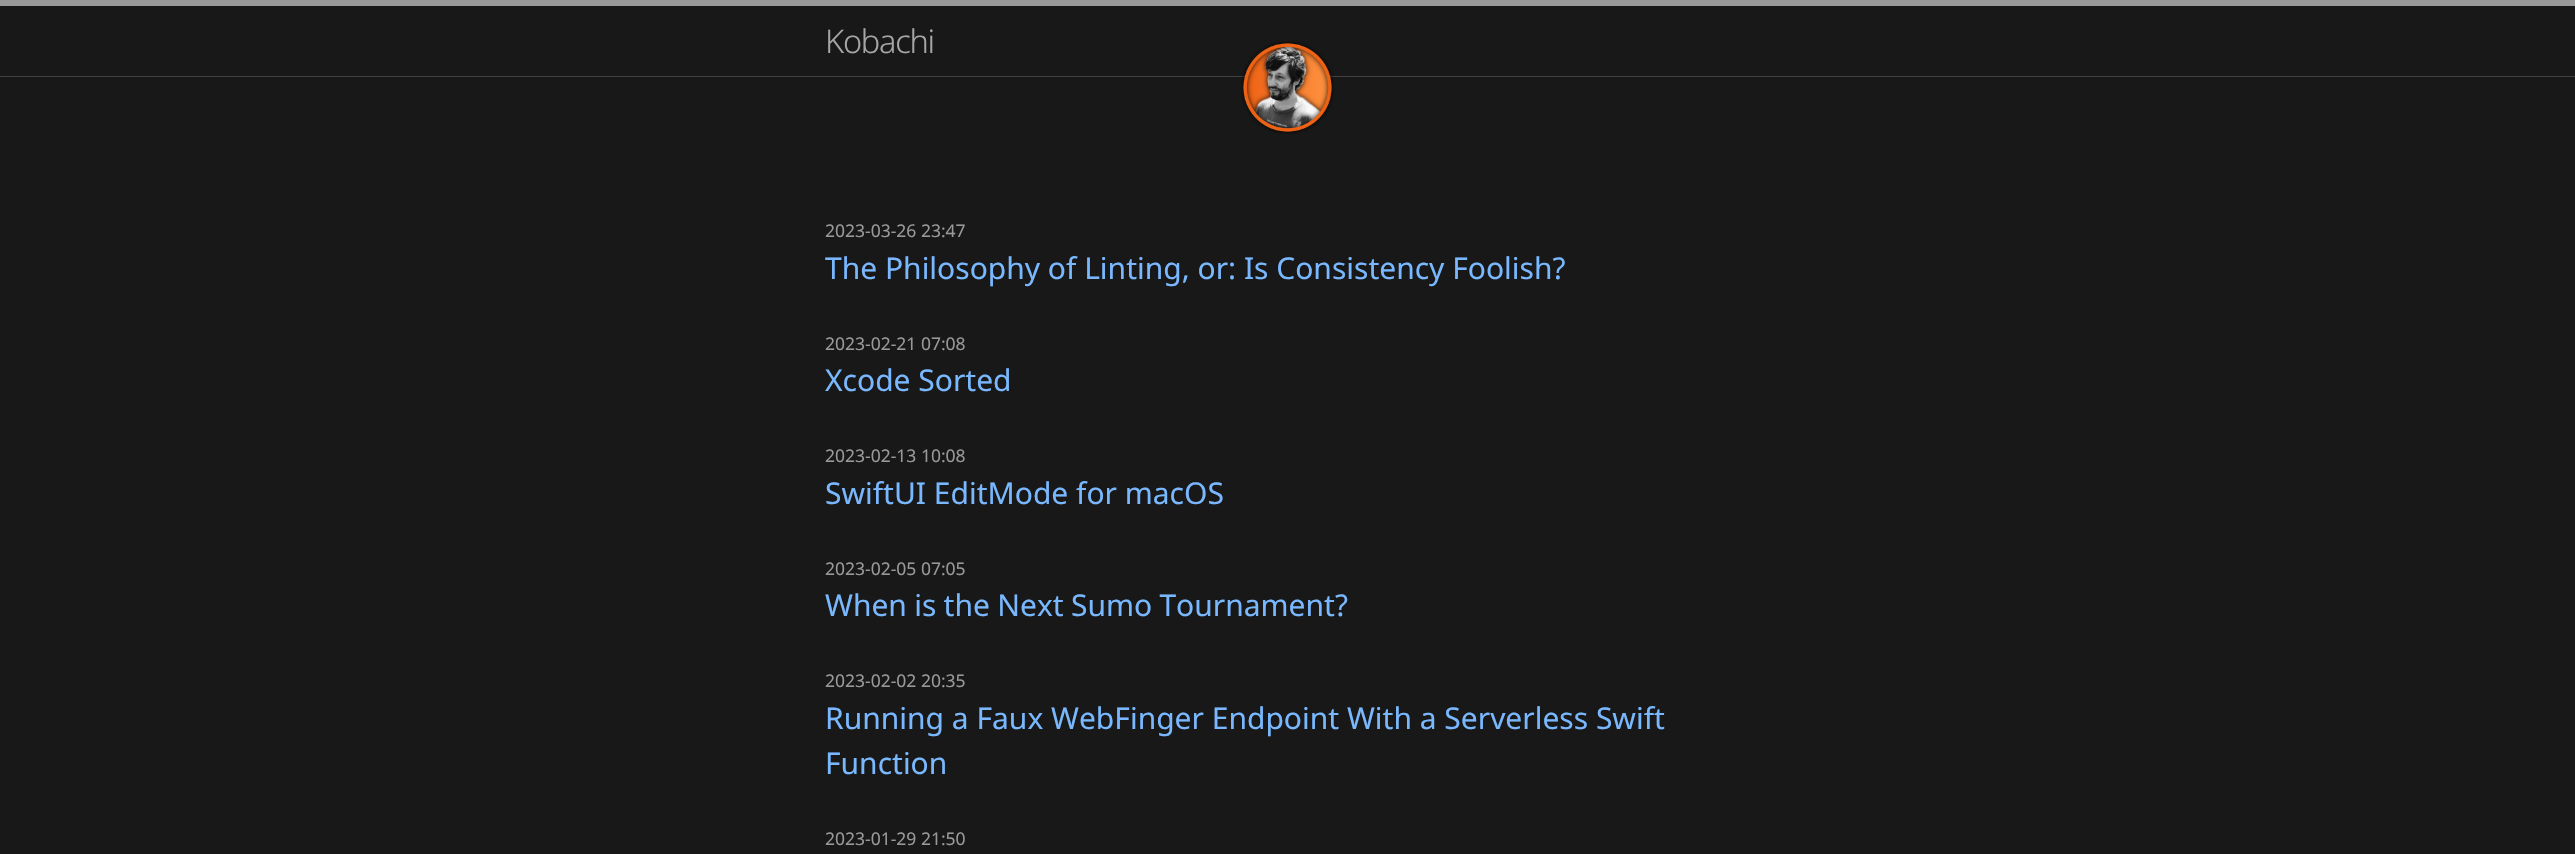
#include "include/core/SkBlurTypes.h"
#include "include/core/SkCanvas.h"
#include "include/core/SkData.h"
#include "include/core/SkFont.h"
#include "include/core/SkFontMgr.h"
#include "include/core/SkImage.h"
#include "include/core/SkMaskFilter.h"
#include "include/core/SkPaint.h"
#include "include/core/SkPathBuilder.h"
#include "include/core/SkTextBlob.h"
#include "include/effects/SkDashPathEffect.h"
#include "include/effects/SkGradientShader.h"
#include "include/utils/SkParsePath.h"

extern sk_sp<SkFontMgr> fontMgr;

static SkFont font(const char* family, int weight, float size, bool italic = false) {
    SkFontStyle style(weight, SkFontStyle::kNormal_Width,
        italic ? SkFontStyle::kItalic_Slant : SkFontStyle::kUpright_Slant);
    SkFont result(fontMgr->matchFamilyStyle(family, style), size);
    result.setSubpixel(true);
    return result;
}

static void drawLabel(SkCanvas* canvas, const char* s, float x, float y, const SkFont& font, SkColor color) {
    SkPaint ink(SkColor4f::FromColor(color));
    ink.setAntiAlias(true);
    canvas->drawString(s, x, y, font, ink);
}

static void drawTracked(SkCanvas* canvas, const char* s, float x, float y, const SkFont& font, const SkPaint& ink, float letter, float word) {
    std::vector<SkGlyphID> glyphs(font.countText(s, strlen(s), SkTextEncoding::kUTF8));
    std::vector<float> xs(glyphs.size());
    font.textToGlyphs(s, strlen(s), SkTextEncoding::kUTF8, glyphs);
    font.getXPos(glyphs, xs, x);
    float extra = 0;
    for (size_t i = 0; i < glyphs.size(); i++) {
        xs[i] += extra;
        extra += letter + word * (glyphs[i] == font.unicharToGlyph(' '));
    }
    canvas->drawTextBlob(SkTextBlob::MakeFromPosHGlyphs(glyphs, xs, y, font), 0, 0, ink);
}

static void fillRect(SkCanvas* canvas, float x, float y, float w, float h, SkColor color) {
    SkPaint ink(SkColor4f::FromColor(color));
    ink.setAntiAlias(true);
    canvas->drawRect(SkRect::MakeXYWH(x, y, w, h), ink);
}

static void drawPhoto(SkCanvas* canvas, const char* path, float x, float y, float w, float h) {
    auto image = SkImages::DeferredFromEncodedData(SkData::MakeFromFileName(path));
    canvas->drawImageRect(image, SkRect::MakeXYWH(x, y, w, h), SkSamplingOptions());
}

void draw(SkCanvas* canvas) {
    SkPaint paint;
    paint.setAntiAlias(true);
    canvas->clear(0xFF181818);
    fillRect(canvas, 0, 0, 2575, 6, 0xFF999999);
    fillRect(canvas, 0, 76, 2575, 1, 0xFF404040);
    SkFont font1 = font("Noto Sans", 300, 32.5f);
    paint.setColor(0xFFA6A6A6);
    drawTracked(canvas, "Kobachi", 825, 53, font1, paint, -1.25f, 0);
    drawPhoto(canvas, "assets/img1.png", 1241, 41, 93, 93);
    SkFont font2 = font("Noto Sans", 400, 17.5f);
    drawLabel(canvas, "2023-03-26 23:47", 825, 237, font2, 0xFF999999);
    SkFont font3 = font("Noto Sans", 400, 30);
    drawLabel(canvas, "The Philosophy of Linting, or: Is Consistency Foolish?", 825, 279, font3, 0xFF79B8FF);
    drawLabel(canvas, "2023-02-21 07:08", 825, 350, font2, 0xFF999999);
    drawLabel(canvas, "Xcode Sorted", 825, 391, font3, 0xFF79B8FF);
    drawLabel(canvas, "2023-02-13 10:08", 825, 462, font2, 0xFF999999);
    drawLabel(canvas, "SwiftUI EditMode for macOS", 825, 504, font3, 0xFF79B8FF);
    drawLabel(canvas, "2023-02-05 07:05", 825, 575, font2, 0xFF999999);
    paint.setColor(0xFF79B8FF);
    drawTracked(canvas, "When is the Next Sumo Tournament?", 825, 616, font3, paint, 0, -0.5f);
    drawLabel(canvas, "2023-02-02 20:35", 825, 687, font2, 0xFF999999);
    drawLabel(canvas, "Running a Faux WebFinger Endpoint With a Serverless Swift", 825, 729, font3, 0xFF79B8FF);
    drawLabel(canvas, "Function", 825, 774, font3, 0xFF79B8FF);
    drawLabel(canvas, "2023-01-29 21:50", 825, 845, font2, 0xFF999999);
}
